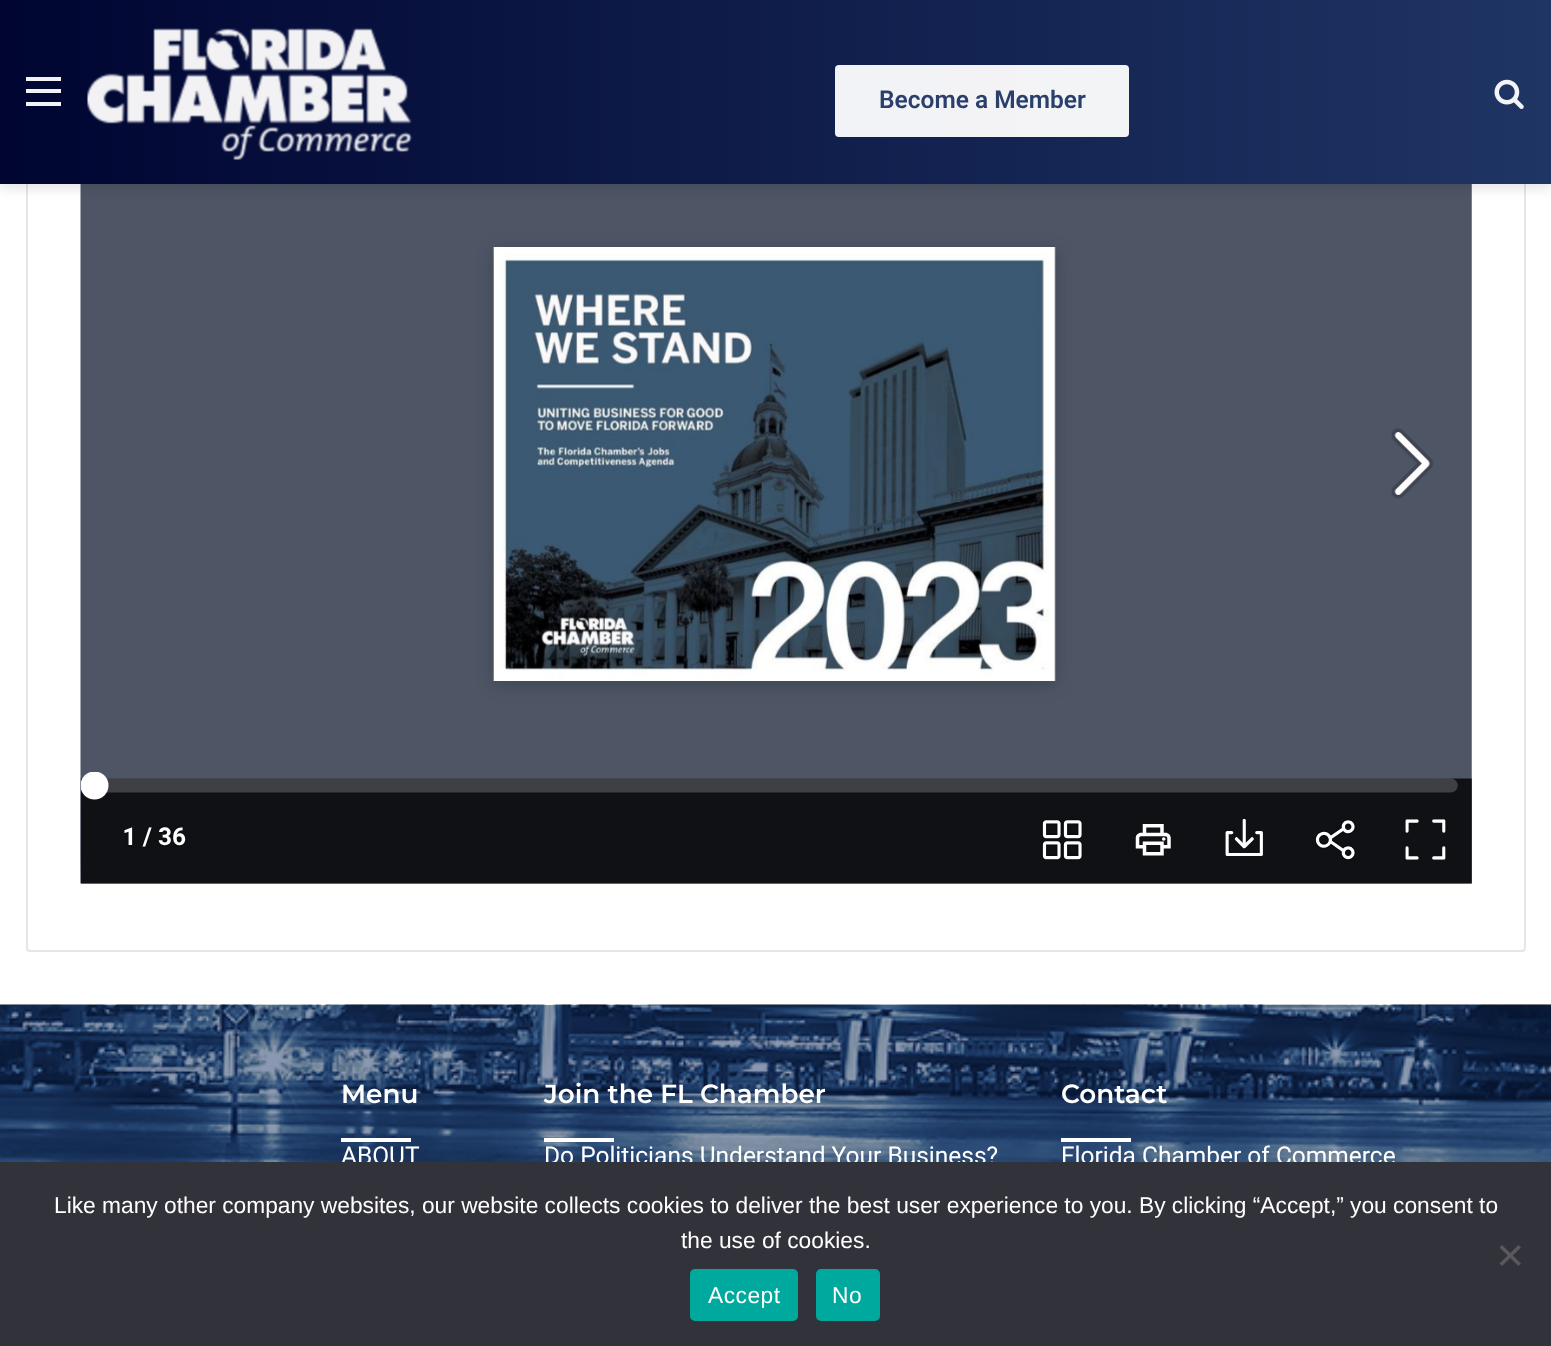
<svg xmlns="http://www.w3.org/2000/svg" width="1551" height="1346">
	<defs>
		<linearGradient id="g1" gradientUnits="userSpaceOnUse" x1="0" y1="92" x2="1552" y2="92"><stop offset="0" stop-color="#000531" /><stop offset="1" stop-color="#1F3564" /></linearGradient>
	</defs>
	<rect width="100%" height="100%" fill="#FFFFFF" />
	<rect x="27" y="-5" width="1498" height="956" rx="3" fill="none" stroke="#E6E6E6" stroke-width="2" />
	<image x="80" y="184" width="1392" height="700" href="assets/img1.png" />
	<rect x="0" y="5" width="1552" height="184" fill="#000000" fill-opacity="0.1" filter="blur(6px)" />
	<rect x="0" y="0" width="1551" height="184" fill="url(#g1)" />
	<rect x="26" y="89" width="35" height="4" fill="#F2F3F5" />
	<rect x="26" y="77" width="35" height="4" fill="#F2F3F5" />
	<rect x="26" y="102" width="35" height="4" fill="#F2F3F5" />
	<image x="87" y="28" width="326" height="132" href="assets/img2.png" />
	<rect x="835" y="65" width="294" height="72" rx="4" fill="#FFFFFF" fill-opacity="0.95" />
	<text x="879" y="108" font-family="Roboto" font-size="24.5" font-weight="600" fill="#2A3F6B">Become a Member</text>
	<image x="1494" y="79" width="30" height="30" href="assets/img3.png" />
	<rect x="0" y="1005" width="1551" height="157" fill="#0F2A63" />
	<image x="0" y="1004" width="1551" height="158" href="assets/img4.png" />
	<text x="341" y="1103" font-family="Montserrat" font-size="26.25" font-weight="600" fill="#FFFFFF">Menu</text>
	<rect x="341" y="1138" width="70" height="4" fill="#FFFFFF" />
	<text x="341" y="1164" font-family="Roboto" font-size="24.5" fill="#FFFFFF">ABOUT</text>
	<text x="544" y="1103" font-family="Montserrat" font-size="26.25" font-weight="600" fill="#FFFFFF">Join the FL Chamber</text>
	<rect x="544" y="1138" width="70" height="4" fill="#FFFFFF" />
	<text x="544" y="1164" font-family="Roboto" font-size="24.5" fill="#FFFFFF">Do Politicians Understand Your Business?</text>
	<text x="1061" y="1103" font-family="Montserrat" font-size="26.25" font-weight="600" fill="#FFFFFF">Contact</text>
	<rect x="1061" y="1138" width="70" height="4" fill="#FFFFFF" />
	<text x="1061" y="1164" font-family="Roboto" font-size="24.5" fill="#FFFFFF">Florida Chamber of Commerce</text>
	<rect x="0" y="1162" width="1551" height="184" fill="#32323A" />
	<g font-family="Liberation Sans" font-size="22.75" fill="#FFFFFF">
		<text x="54" y="1213">Like many other company websites, our website collects cookies to deliver the best user experience to you. By clicking “Accept,” you consent to</text>
		<text x="681" y="1248">the use of cookies.</text>
	</g>
	<path d="M1518.5 1245L1521 1247.5L1502 1266L1499.5 1263.5Z" fill="#59595D" />
	<path d="M1499.5 1247.5L1502 1245L1521 1263.5L1518.5 1266Z" fill="#59595D" />
	<rect x="690" y="1269" width="108" height="52" rx="5" fill="#00A99D" />
	<text x="708" y="1303" font-family="Liberation Sans" font-size="22.75" letter-spacing="0.5" fill="#FFFFFF">Accept</text>
	<rect x="816" y="1269" width="64" height="52" rx="5" fill="#00A99D" />
	<text x="832" y="1303" font-family="Liberation Sans" font-size="22.75" letter-spacing="0.5" fill="#FFFFFF">No</text>
</svg>
